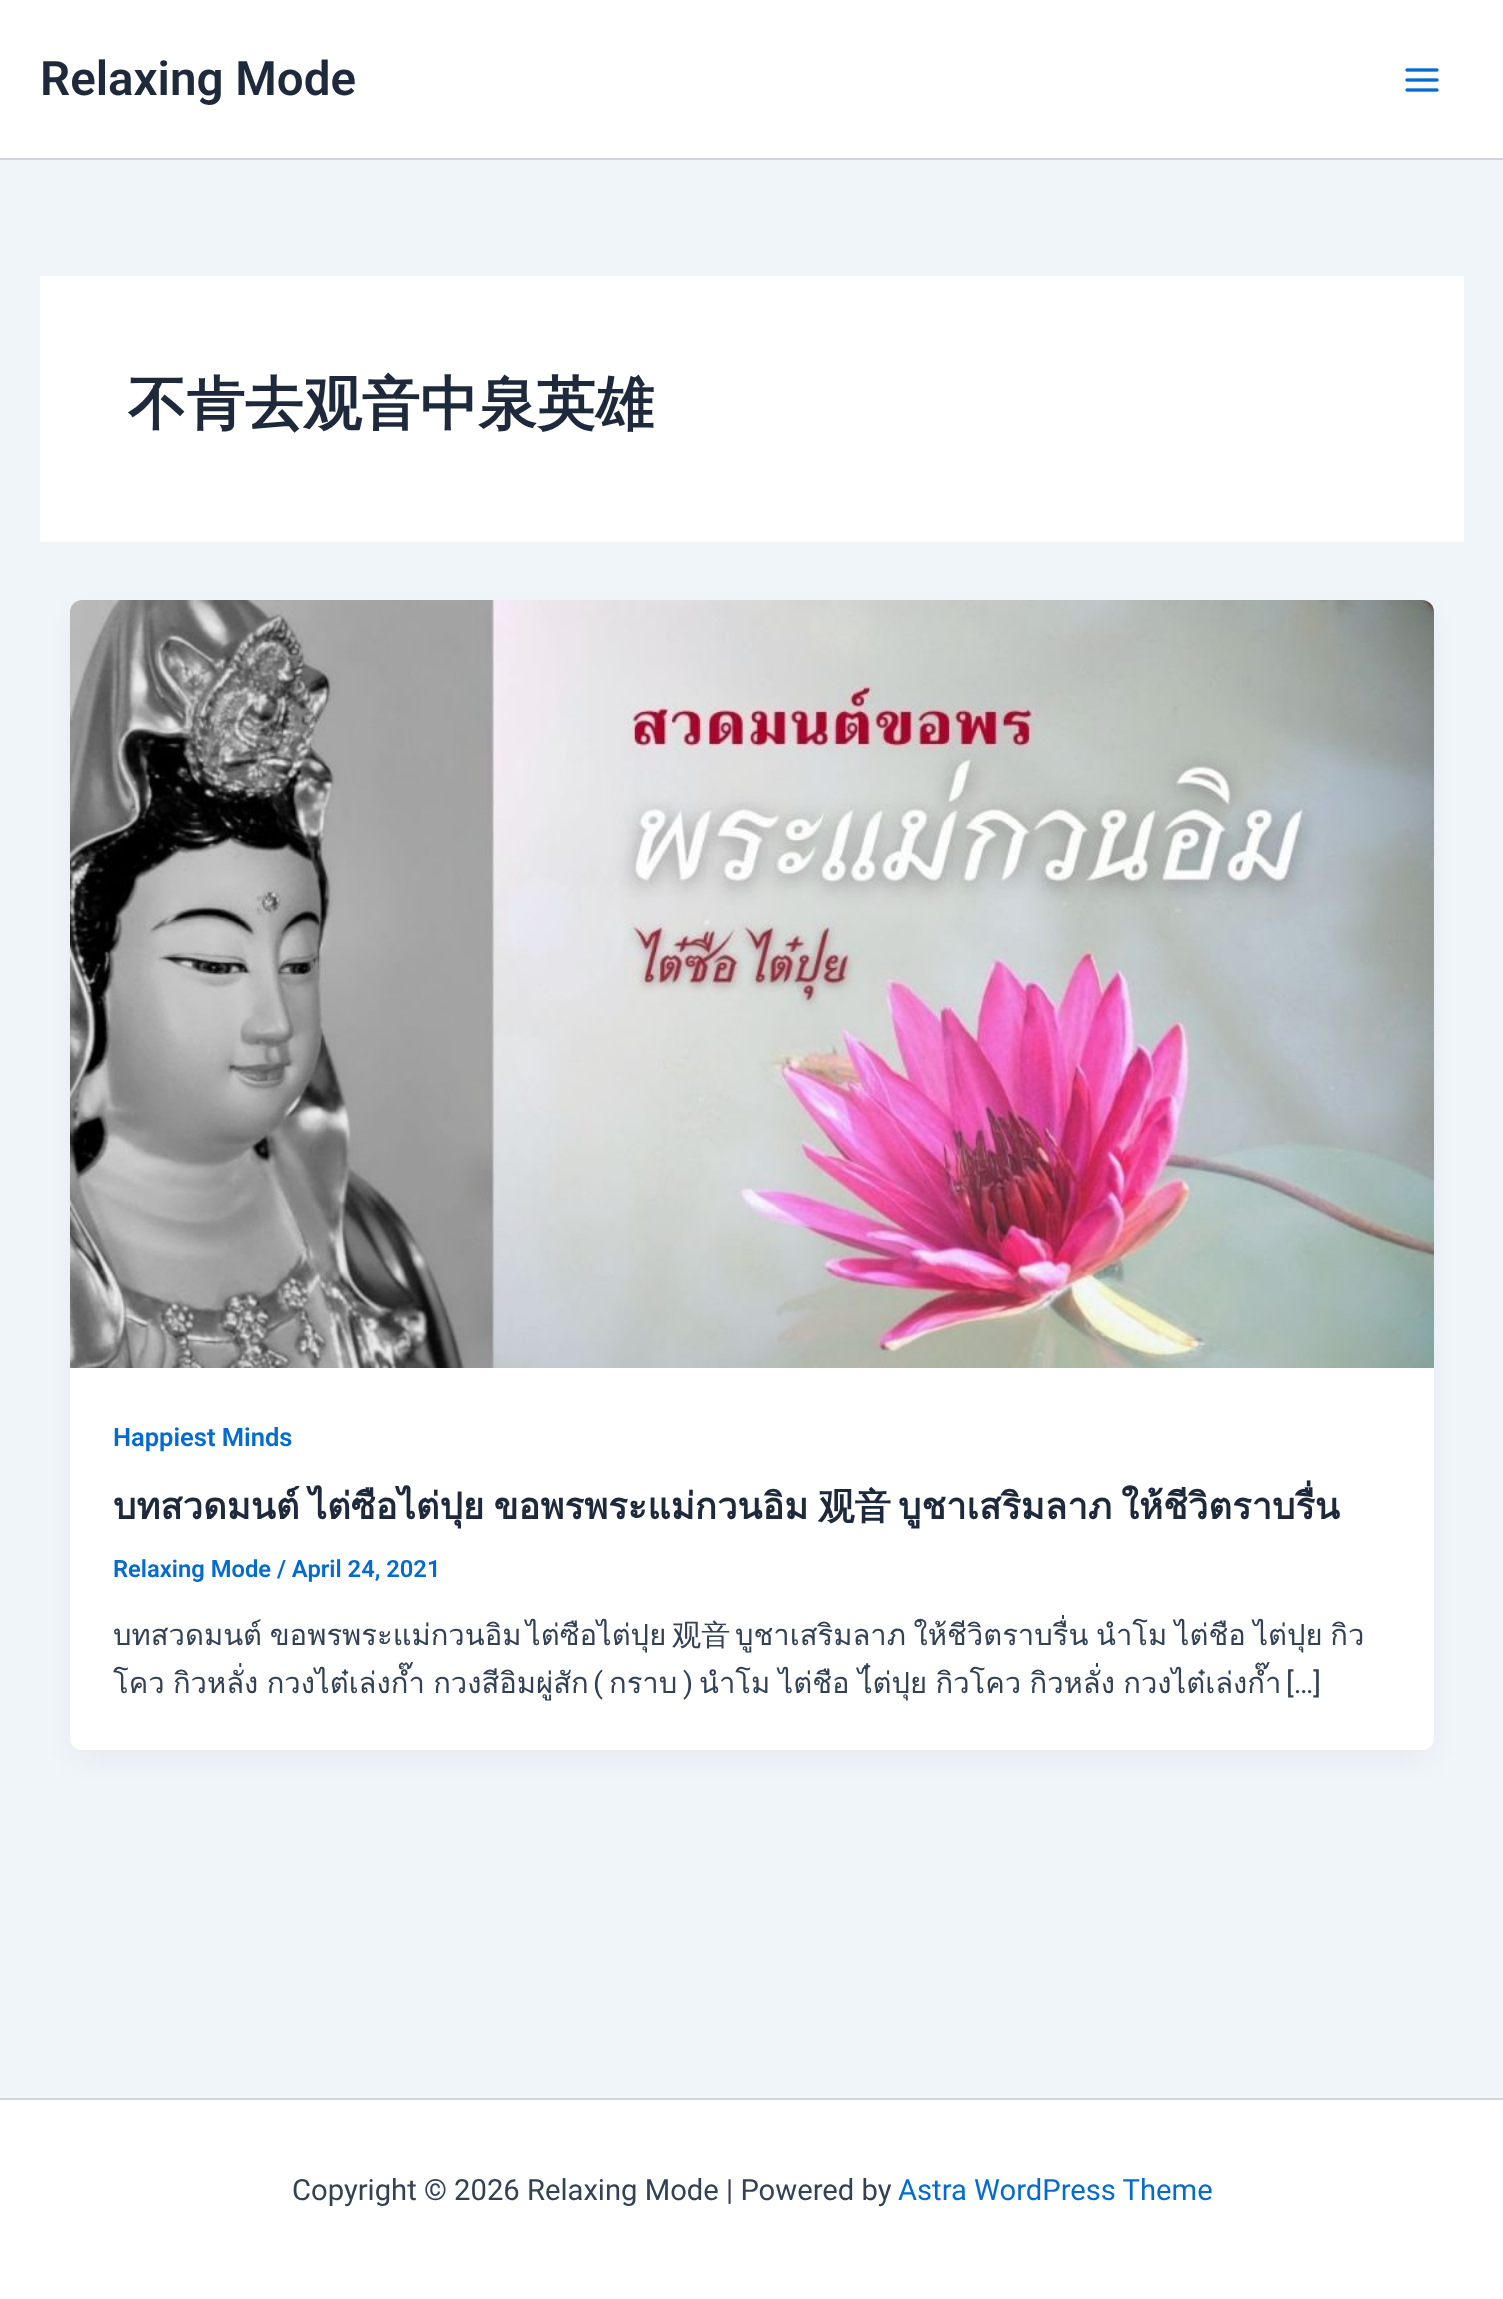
<svg xmlns="http://www.w3.org/2000/svg" width="1503" height="2299">
	<rect width="100%" height="100%" fill="#F0F5FA" />
	<rect x="0" y="0" width="1503" height="158" fill="#FFFFFF" />
	<rect x="0" y="158" width="1503" height="2" fill="#D1D5DB" />
	<text x="40" y="95" font-family="Roboto" font-size="47.5" font-weight="600" fill="#1E293B">Relaxing Mode</text>
	<image x="1405" y="68" width="34" height="24" href="assets/img1.png" />
	<rect x="40" y="276" width="1424" height="266" fill="#FFFFFF" />
	<text x="128" y="424" font-family="WenQuanYi Zen Hei" font-size="58.4" font-weight="700" fill="#1E293B">不肯去观音中泉英雄</text>
	<rect x="74" y="616" width="1356" height="1142" rx="8" fill="#101828" fill-opacity="0.05" filter="blur(15px)" />
	<rect x="70" y="600" width="1364" height="1150" rx="12" fill="#FFFFFF" />
	<image x="70" y="600" width="1364" height="768" href="assets/img2.png" />
	<text x="113" y="1446" font-family="Roboto" font-size="25.5" font-weight="600" fill="#046BD2">Happiest Minds</text>
	<text x="113" y="1519" word-spacing="-3" font-family="Loma" font-size="36.5" font-weight="700" fill="#1E293B">บทสวดมนต์ ไต่ซือไต่ปุย ขอพรพระแม่กวนอิม</text>
	<text x="818" y="1519" font-family="WenQuanYi Zen Hei" font-size="36.5" font-weight="700" fill="#1E293B">观音</text>
	<text x="898" y="1519" word-spacing="-3" font-family="Loma" font-size="36.5" font-weight="700" fill="#1E293B">บูชาเสริมลาภ ให้ชีวิตราบรื่น</text>
	<text x="113" y="1577" font-family="Roboto" font-size="23.75" font-weight="600" fill="#046BD2">Relaxing Mode / April 24, 2021</text>
	<g font-family="Loma" font-size="29.2" fill="#334155">
		<text x="113" y="1645" word-spacing="-2.25">บทสวดมนต์ ขอพรพระแม่กวนอิม</text>
		<text x="526" y="1645">ไต่ซือไต่ปุย</text>
	</g>
	<text x="672" y="1645" font-family="WenQuanYi Zen Hei" font-size="29.2" font-weight="500" fill="#334155">观音</text>
	<g font-family="Loma" font-size="29.2" fill="#334155">
		<text x="735" y="1645" word-spacing="-2.25">บูชาเสริมลาภ ให้ชีวิตราบรื่น นำโม ไต่ชือ ไต่ปุย กิว</text>
		<text x="113" y="1693" word-spacing="-1.5">โคว กิวหลั่ง กวงไต๋เล่งก๊ำ กวงสีอิมผู่สัก</text>
	</g>
	<text x="593" y="1693" font-family="Roboto" font-size="29.2" fill="#334155">(</text>
	<text x="609" y="1693" font-family="Loma" font-size="29.2" fill="#334155">กราบ</text>
	<text x="683" y="1693" font-family="Roboto" font-size="29.2" fill="#334155">)</text>
	<text x="699" y="1693" word-spacing="-1.5" font-family="Loma" font-size="29.2" fill="#334155">นำโม ไต่ชือ ไ๋ต่ปุย กิวโคว กิวหลั่ง กวงไต๋เล่งก๊ำ</text>
	<text x="1286" y="1693" font-family="Roboto" font-size="29.2" fill="#334155">[…]</text>
	<rect x="0" y="2100" width="1503" height="199" fill="#FFFFFF" />
	<rect x="0" y="2098" width="1503" height="2" fill="#D1D5DB" />
	<text x="292" y="2200" font-family="Roboto" font-size="29.2" fill="#334155">Copyright © 2026 Relaxing Mode | Powered by</text>
	<text x="898" y="2200" font-family="Roboto" font-size="29.2" fill="#046BD2">Astra WordPress Theme</text>
</svg>
